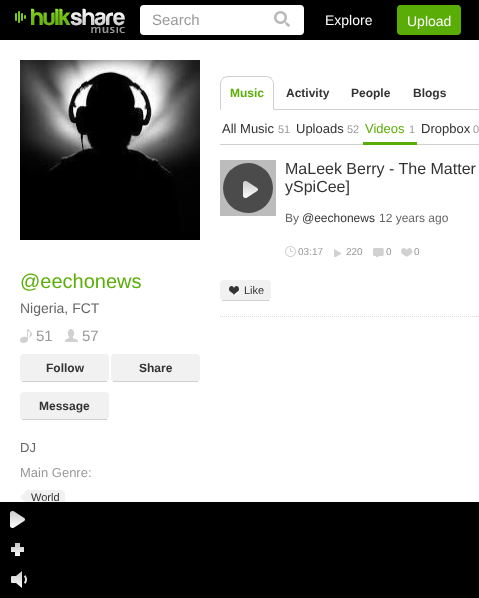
<svg xmlns="http://www.w3.org/2000/svg" width="479" height="598">
	<rect width="100%" height="100%" fill="#FFFFFF" />
	<rect x="0" y="0" width="479" height="40" fill="#000000" />
	<image x="15" y="8" width="110" height="25" href="assets/img1.png" />
	<rect x="141" y="6" width="162" height="28" rx="3" fill="#FFFFFF" stroke="#FFFFFF" stroke-width="2" />
	<text x="152" y="25" font-family="Liberation Sans" font-size="15" fill="#999999">Search</text>
	<image x="274" y="11" width="16" height="16" href="assets/img2.png" />
	<text x="325" y="25" font-family="Liberation Sans" font-size="14" fill="#FFFFFF">Explore</text>
	<rect x="397" y="5" width="64" height="30" rx="4" fill="#5AAD07" />
	<rect x="399" y="5" width="60" height="1" fill="#5AAD07" />
	<text x="407" y="26" font-family="Liberation Sans" font-size="14" fill="#FFFFFF">Upload</text>
	<rect x="220" y="109" width="259" height="1" fill="#D0D0D0" />
	<path d="M228 76C226 76 224 77 222 78L223 79C224 78 226 77 228 77H266C268 77 270 78 271 79L272 78C270 77 268 76 266 76Z" fill="#D0D0D0" />
	<path d="M274 110V84C274 82 273 80 271.5 78.5L271 79C272 80 273 82 273 84V109Z" fill="#D0D0D0" />
	<path d="M274 110L273 109H221L220 110Z" fill="#FFFFFF" />
	<path d="M220 110L221 109V84C221 82 222 80 223 79L222.5 78.5C221 80 220 82 220 84Z" fill="#D0D0D0" />
	<text x="230" y="97" font-family="Liberation Sans" font-size="12" font-weight="700" fill="#5AAE07">Music</text>
	<g font-family="Liberation Sans" font-size="12" font-weight="700" fill="#333333">
		<text x="286" y="97">Activity</text>
		<text x="351" y="97">People</text>
		<text x="413" y="97">Blogs</text>
	</g>
	<rect x="220" y="144" width="259" height="1" fill="#D0D0D0" />
	<text x="222" y="133" font-family="Liberation Sans" font-size="13" fill="#333333">All Music</text>
	<text x="278" y="133" font-family="Liberation Sans" font-size="11" fill="#999999">51</text>
	<text x="296" y="133" font-family="Liberation Sans" font-size="13" fill="#333333">Uploads</text>
	<text x="347" y="133" font-family="Liberation Sans" font-size="11" fill="#999999">52</text>
	<rect x="363" y="142" width="54" height="3" fill="#5AAE07" />
	<text x="365" y="133" font-family="Liberation Sans" font-size="13" fill="#5AAE07">Videos</text>
	<text x="409" y="133" font-family="Liberation Sans" font-size="11" fill="#999999">1</text>
	<text x="421" y="133" font-family="Liberation Sans" font-size="13" fill="#333333">Dropbox</text>
	<text x="473" y="133" font-family="Liberation Sans" font-size="11" fill="#999999">0</text>
	<path d="M220 316.5H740" fill="none" stroke="#DCDCDC" stroke-dasharray="1 1" />
	<rect x="220" y="160" width="56" height="56" fill="#BCBCBC" />
	<circle cx="248" cy="188" r="25" fill="#4B4B4B" />
	<image x="243" y="181" width="15" height="17" href="assets/img3.png" />
	<g font-family="Liberation Sans" font-size="16" fill="#333333">
		<text x="285" y="174">MaLeek Berry - The Matter</text>
		<text x="285" y="192">ySpiCee]</text>
	</g>
	<text x="285" y="222" font-family="Liberation Sans" font-size="12" fill="#666666">By</text>
	<text x="302" y="222" font-family="Liberation Sans" font-size="12" fill="#333333">@eechonews</text>
	<text x="379" y="222" font-family="Liberation Sans" font-size="12" fill="#666666">12 years ago</text>
	<image x="285" y="246" width="11" height="11" href="assets/img4.png" />
	<text x="298" y="255" font-family="Liberation Sans" font-size="10" fill="#999999">03:17</text>
	<image x="334" y="249" width="7" height="8" href="assets/img5.png" />
	<text x="346" y="255" font-family="Liberation Sans" font-size="10" fill="#999999">220</text>
	<image x="373" y="248" width="11" height="9" href="assets/img6.png" />
	<text x="386" y="255" font-family="Liberation Sans" font-size="10" fill="#999999">0</text>
	<image x="401" y="248" width="12" height="9" href="assets/img7.png" />
	<text x="414" y="255" font-family="Liberation Sans" font-size="10" fill="#999999">0</text>
	<rect x="220" y="280" width="51" height="21" rx="4" fill="#F1F1F1" />
	<rect x="222" y="300" width="47" height="1" fill="#D0D0D0" />
	<image x="229" y="286" width="10" height="10" href="assets/img8.png" />
	<text x="244" y="294" font-family="Liberation Sans" font-size="11" fill="#333333">Like</text>
	<image x="20" y="60" width="180" height="180" href="assets/img9.png" />
	<image x="72" y="81" width="61" height="60" href="assets/img10.png" />
	<text x="20" y="288" font-family="Liberation Sans" font-size="20" fill="#5AAE07">@eechonews</text>
	<text x="20" y="313" font-family="Liberation Sans" font-size="14" fill="#666666">Nigeria, FCT</text>
	<image x="20" y="329" width="12" height="14" href="assets/img11.png" />
	<text x="36" y="341" font-family="Liberation Sans" font-size="15" fill="#999999">51</text>
	<image x="65" y="329" width="13" height="13" href="assets/img12.png" />
	<text x="82" y="341" font-family="Liberation Sans" font-size="15" fill="#999999">57</text>
	<rect x="20" y="354" width="89" height="28" rx="4" fill="#F1F1F1" />
	<rect x="22" y="381" width="85" height="1" fill="#D0D0D0" />
	<text x="46" y="372" font-family="Liberation Sans" font-size="12" font-weight="700" fill="#333333">Follow</text>
	<rect x="111" y="354" width="89" height="28" rx="4" fill="#F1F1F1" />
	<rect x="113" y="381" width="85" height="1" fill="#D0D0D0" />
	<text x="139" y="372" font-family="Liberation Sans" font-size="12" font-weight="700" fill="#333333">Share</text>
	<rect x="20" y="392" width="89" height="28" rx="4" fill="#F1F1F1" />
	<rect x="22" y="419" width="85" height="1" fill="#D0D0D0" />
	<text x="39" y="410" font-family="Liberation Sans" font-size="12" font-weight="700" fill="#333333">Message</text>
	<text x="20" y="452" font-family="Liberation Sans" font-size="13" fill="#666666">DJ</text>
	<text x="20" y="477" font-family="Liberation Sans" font-size="13" fill="#999999">Main Genre:</text>
	<path d="M28 490H61C63 490 65 492 65 494V502C65 504 63 506 61 506H28Z" fill="#F1F1F1" />
	<path d="M28 489V505L20 497Z" fill="#F1F1F1" />
	<text x="31" y="501" font-family="Liberation Sans" font-size="11" fill="#333333">World</text>
	<rect x="0" y="502" width="479" height="96" fill="#000000" />
	<image x="10" y="511" width="15" height="17" href="assets/img13.png" />
	<image x="11" y="543" width="13" height="13" href="assets/img14.png" />
	<image x="11" y="571" width="16" height="17" href="assets/img15.png" />
</svg>
